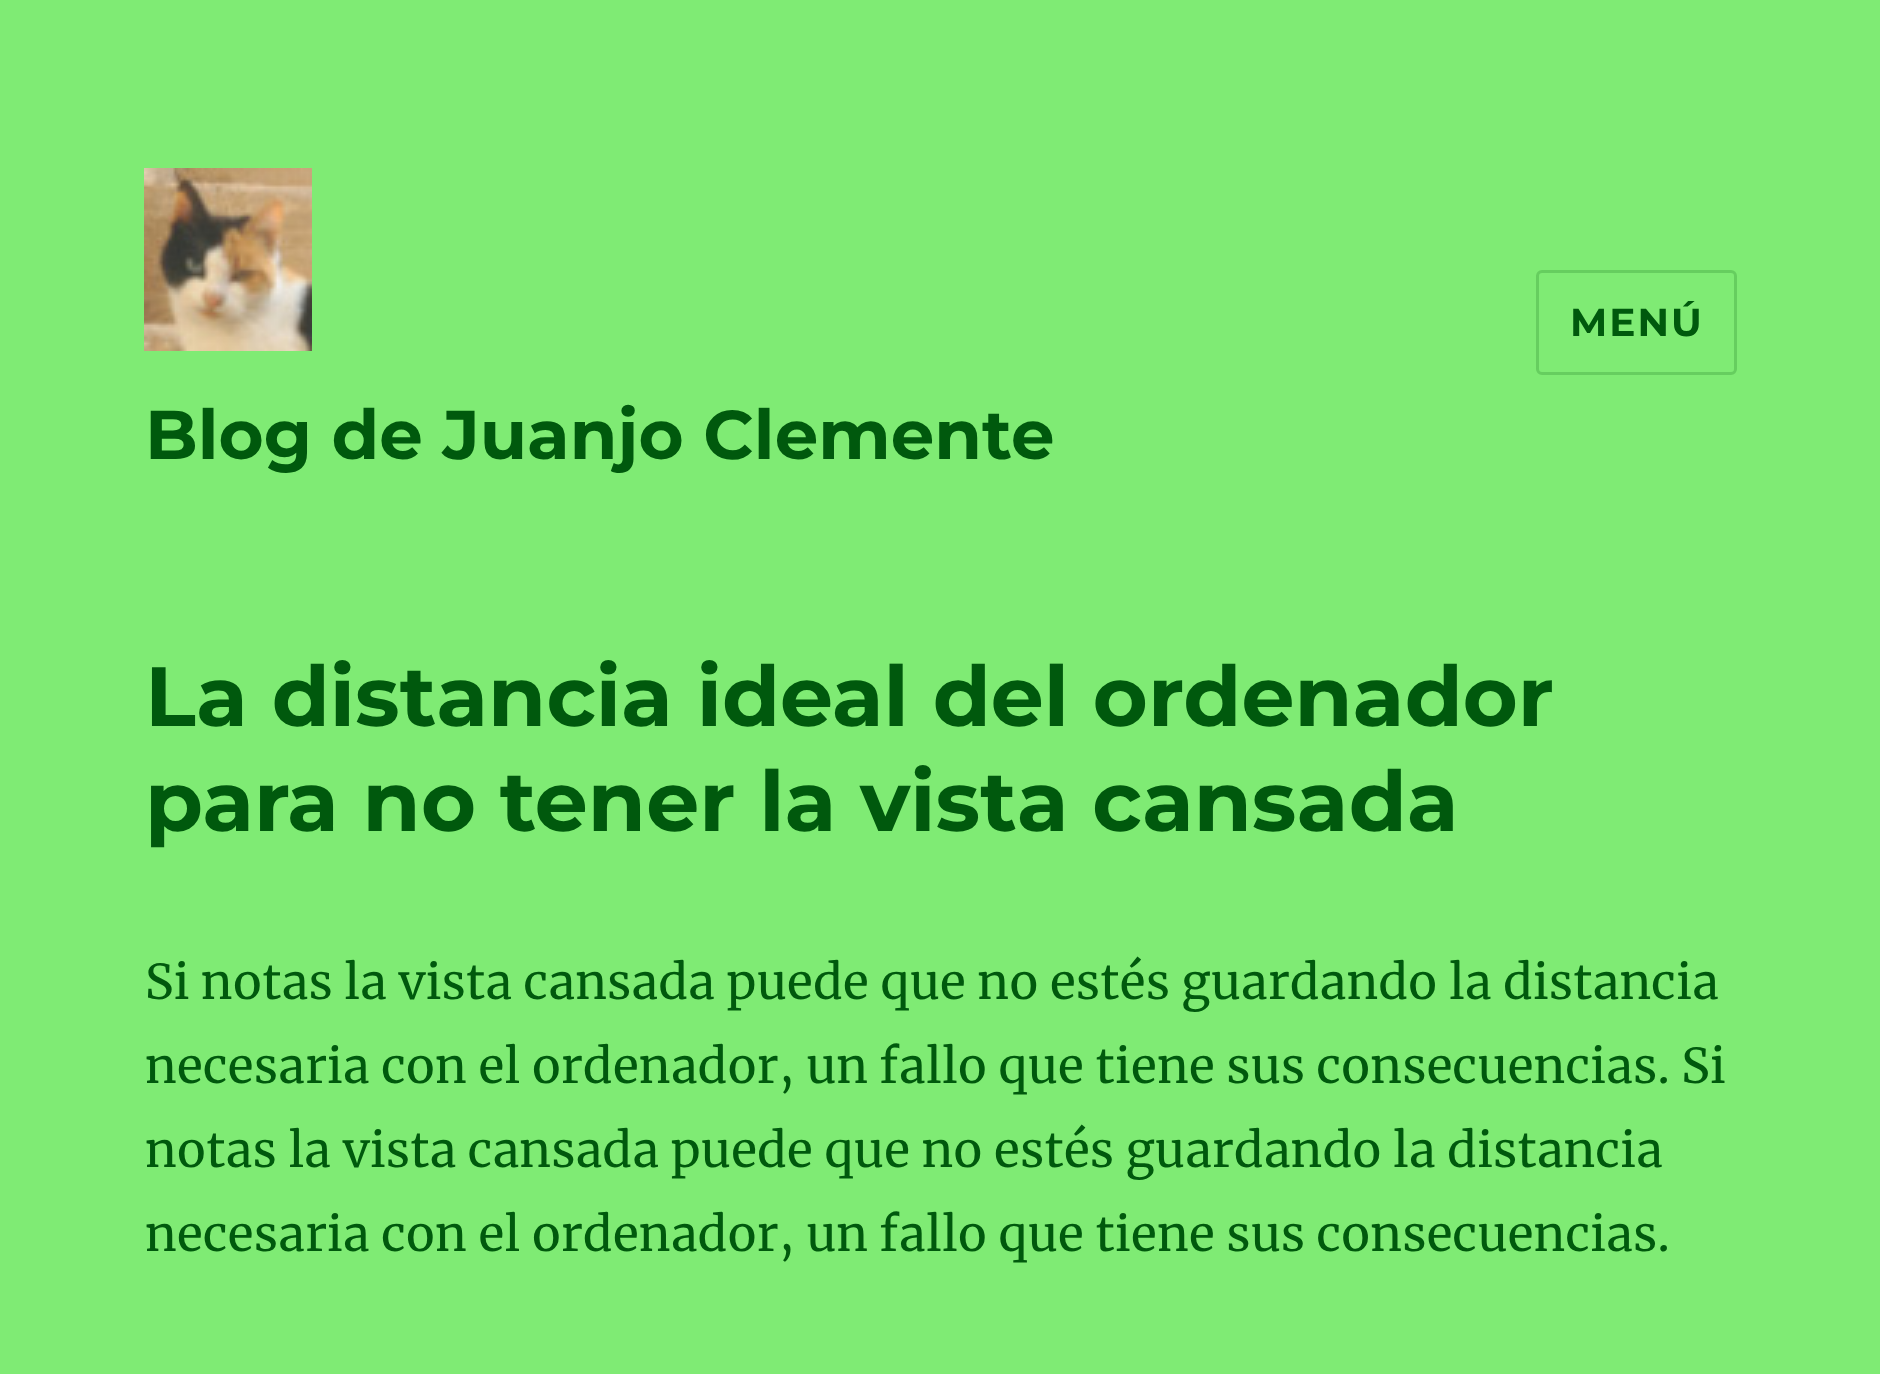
<svg xmlns="http://www.w3.org/2000/svg" width="1880" height="1374">
	<rect width="100%" height="100%" fill="#7FEB74" />
	<rect x="1537.5" y="271.5" width="198" height="102" rx="4.5" fill="none" stroke="#66CE5F" stroke-width="3" />
	<text x="1570" y="336" font-family="Montserrat" font-size="39" font-weight="100" letter-spacing="2" fill="#00590D">MENÚ</text>
	<image x="144" y="168" width="168" height="183" href="assets/img1.png" />
	<text x="145" y="459" font-family="Montserrat" font-size="69" font-weight="100" fill="#00590D">Blog de Juanjo Clemente</text>
	<g font-family="Montserrat" font-size="84" font-weight="100" fill="#00590D">
		<text x="145" y="726">La distancia ideal del ordenador</text>
		<text x="145" y="831">para no tener la vista cansada</text>
	</g>
	<g font-family="Merriweather" font-size="48" fill="#00590D">
		<text x="145" y="999">Si notas la vista cansada puede que no estés guardando la distancia</text>
		<text x="145" y="1083">necesaria con el ordenador, un fallo que tiene sus consecuencias. Si</text>
		<text x="145" y="1167">notas la vista cansada puede que no estés guardando la distancia</text>
		<text x="145" y="1251">necesaria con el ordenador, un fallo que tiene sus consecuencias.</text>
	</g>
</svg>
